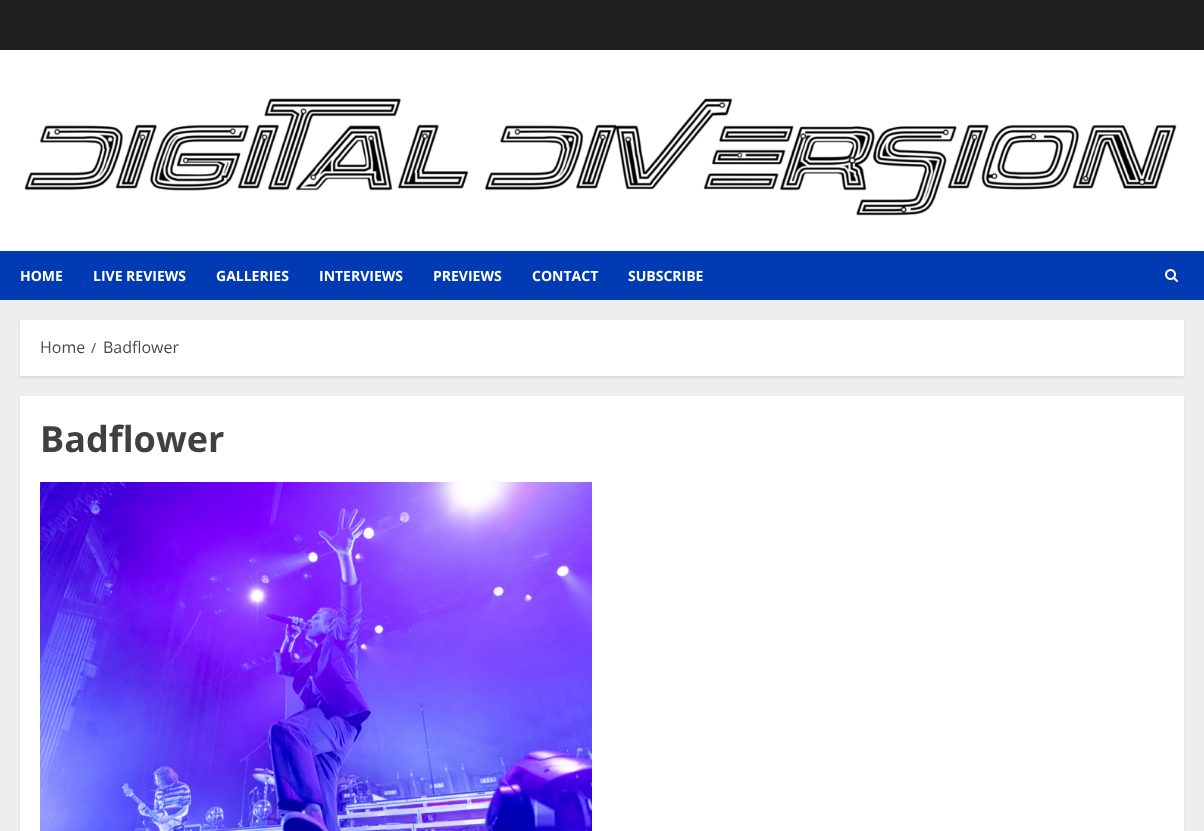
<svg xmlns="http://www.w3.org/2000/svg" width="1204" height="831">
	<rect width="100%" height="100%" fill="#EEEEEE" />
	<rect x="0" y="0" width="1204" height="50" fill="#202020" />
	<rect x="0" y="50" width="1204" height="201" fill="#FFFFFF" />
	<image x="24" y="98" width="1153" height="118" href="assets/img1.png" />
	<rect x="0" y="251" width="1204" height="49" fill="#003BB3" />
	<g font-family="Open Sans" font-size="14" font-weight="700" fill="#FFFFFF">
		<text x="20" y="281">HOME</text>
		<text x="93" y="281">LIVE REVIEWS</text>
		<text x="216" y="281">GALLERIES</text>
		<text x="319" y="281">INTERVIEWS</text>
		<text x="433" y="281">PREVIEWS</text>
		<text x="532" y="281">CONTACT</text>
		<text x="628" y="281">SUBSCRIBE</text>
	</g>
	<image x="1165" y="269" width="13" height="13" href="assets/img2.png" />
	<rect x="20" y="322" width="1164" height="56" fill="#000000" fill-opacity="0.08" filter="blur(1px)" />
	<rect x="20" y="320" width="1164" height="56" fill="#FFFFFF" />
	<text x="40" y="353" font-family="Open Sans" font-size="16" fill="#4A4A4A">Home</text>
	<text x="91" y="353" font-family="Open Sans" font-size="14" fill="#4A4A4A">/</text>
	<text x="103" y="353" font-family="Open Sans" font-size="16" fill="#4A4A4A">Badflower</text>
	<rect x="20" y="398" width="1164" height="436" fill="#000000" fill-opacity="0.08" filter="blur(1px)" />
	<rect x="20" y="396" width="1164" height="435" fill="#FFFFFF" />
	<text x="40" y="452" font-family="Open Sans" font-size="36" font-weight="700" fill="#404040">Badflower</text>
	<image x="40" y="482" width="552" height="349" href="assets/img3.png" />
</svg>
